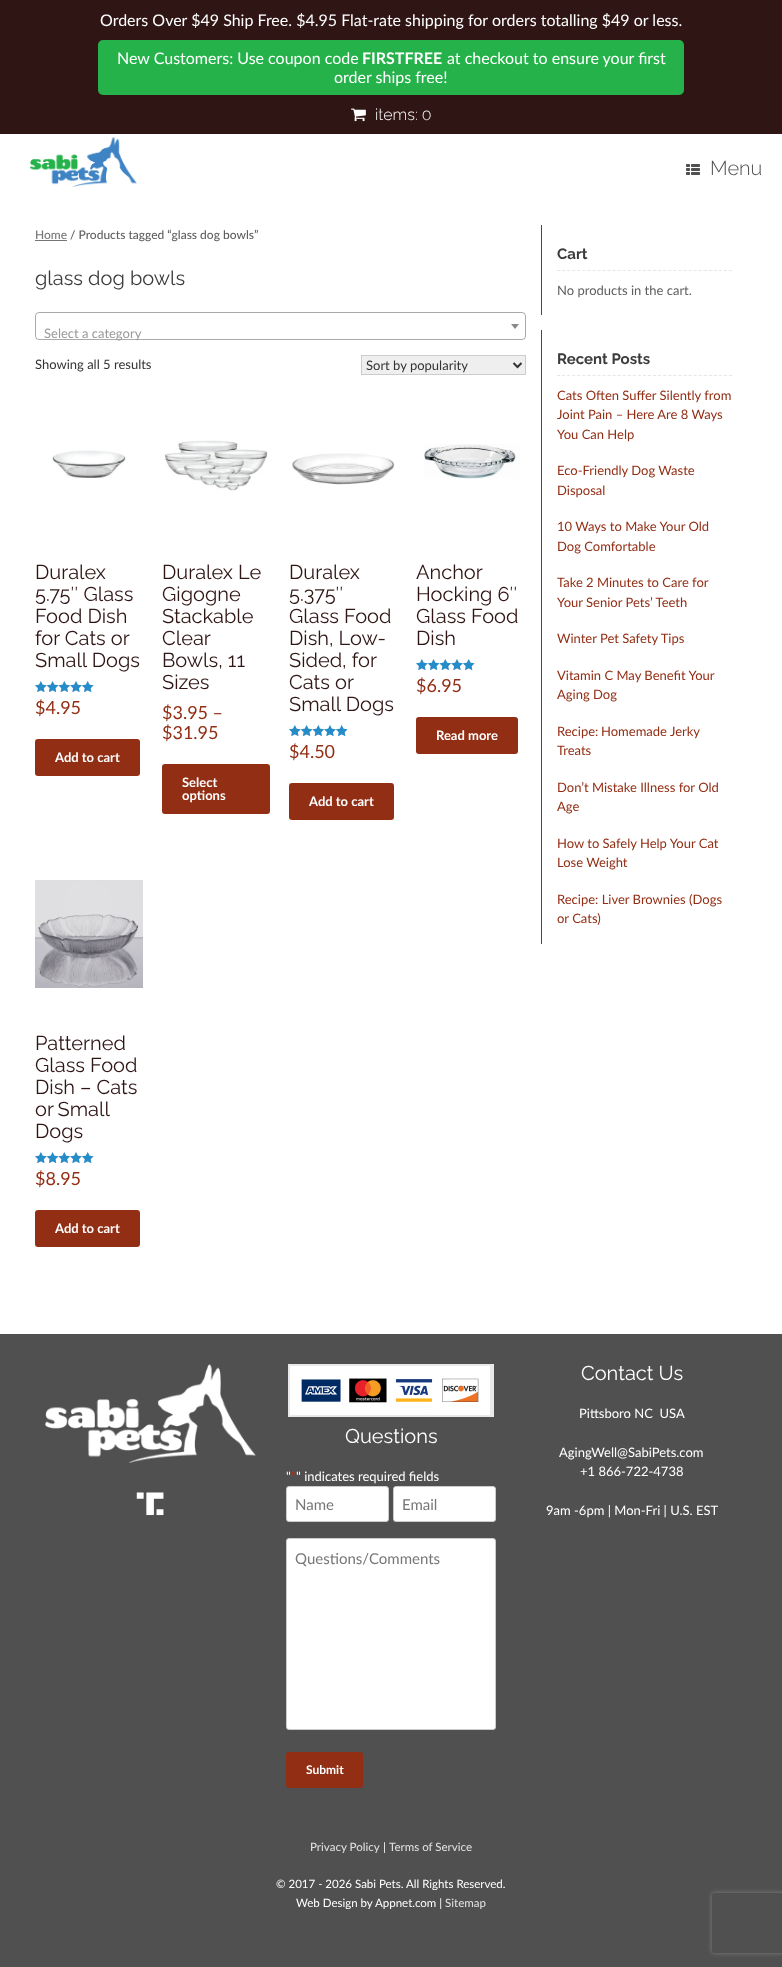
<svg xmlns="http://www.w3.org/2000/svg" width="782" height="1967">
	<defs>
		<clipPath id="clip1"><path d="M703 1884H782V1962H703ZM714 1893H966C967 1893 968 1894 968 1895V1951C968 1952 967 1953 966 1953H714C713 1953 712 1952 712 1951V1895C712 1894 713 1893 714 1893Z" clip-rule="evenodd" /></clipPath>
	</defs>
	<rect width="100%" height="100%" fill="#505050" />
	<rect x="0" y="0" width="782" height="134" fill="#301515" />
	<text x="100" y="26" font-family="Lato" font-size="16" fill="#FFFFFF">Orders Over $49 Ship Free. $4.95 Flat-rate shipping for orders totalling $49 or less.</text>
	<rect x="98" y="40" width="586" height="55" rx="5" fill="#26B24B" />
	<text x="117" y="64" font-family="Lato" font-size="16" fill="#FFFFFF">New Customers: Use coupon code</text>
	<text x="362" y="64" font-family="Lato" font-size="16" font-weight="700" fill="#FFFFFF">FIRSTFREE</text>
	<g font-family="Lato" font-size="16" fill="#FFFFFF">
		<text x="447" y="64">at checkout to ensure your first</text>
		<text x="334" y="83">order ships free!</text>
	</g>
	<image x="351" y="108" width="15" height="14" href="assets/img1.png" />
	<text x="375" y="120" font-family="Raleway" font-size="16" font-weight="300" fill="#FFFFFF">items: 0</text>
	<rect x="0" y="134" width="782" height="1200" fill="#FFFFFF" />
	<image x="30" y="137" width="107" height="50" href="assets/img2.png" />
	<image x="686" y="164" width="14" height="11" href="assets/img3.png" />
	<text x="710" y="175" font-family="Raleway" font-size="20" font-weight="300" fill="#505050">Menu</text>
	<text x="35" y="239" font-family="Lato" font-size="12" font-weight="500" fill="#767676">Home</text>
	<rect x="35" y="240" width="32" height="1" fill="#767676" />
	<text x="70" y="239" font-family="Lato" font-size="12" font-weight="500" fill="#5E5E5E">/ Products tagged “glass dog bowls”</text>
	<text x="35" y="285" font-family="Raleway" font-size="20" font-weight="100" fill="#3B3B3B">glass dog bowls</text>
	<rect x="35.5" y="312.5" width="490" height="27" rx="3.5" fill="none" stroke="#AAAAAA" />
	<path d="M511 324H519L515 329Z" fill="#888888" />
	<text x="44" y="338" font-family="Lato" font-size="13" fill="#999999">Select a category</text>
	<text x="35" y="369" font-family="Lato" font-size="13" fill="#333333">Showing all 5 results</text>
	<rect x="361.5" y="355.5" width="164" height="19" fill="#EFEFEF" stroke="#CCCCCC" />
	<path d="M513.5 363L517.5 367L521.5 363" fill="none" stroke="#333333" stroke-width="2" />
	<text x="366" y="370" font-family="Lato" font-size="13" fill="#333333">Sort by popularity</text>
	<image x="52" y="450" width="74" height="28" href="assets/img4.png" />
	<g font-family="Raleway" font-size="20" font-weight="100" fill="#301515">
		<text x="35" y="579">Duralex</text>
		<text x="35" y="601">5.75″ Glass</text>
		<text x="35" y="623">Food Dish</text>
		<text x="35" y="645">for Cats or</text>
		<text x="35" y="667">Small Dogs</text>
	</g>
	<image x="35" y="681" width="59" height="11" href="assets/img5.png" />
	<image x="35" y="681" width="59" height="11" href="assets/img6.png" />
	<text x="35" y="714" font-family="Lato" font-size="18" fill="#922E14">$4.95</text>
	<rect x="35" y="739" width="105" height="37" rx="3" fill="#922E14" />
	<text x="55" y="762" font-family="Lato" font-size="13" font-weight="700" fill="#FFFFFF">Add to cart</text>
	<image x="164" y="440" width="104" height="51" href="assets/img7.png" />
	<g font-family="Raleway" font-size="20" font-weight="100" fill="#301515">
		<text x="162" y="579">Duralex Le</text>
		<text x="162" y="601">Gigogne</text>
		<text x="162" y="623">Stackable</text>
		<text x="162" y="645">Clear</text>
		<text x="162" y="667">Bowls, 11</text>
		<text x="162" y="689">Sizes</text>
	</g>
	<g font-family="Lato" font-size="18" fill="#922E14">
		<text x="162" y="719">$3.95 –</text>
		<text x="162" y="739">$31.95</text>
	</g>
	<rect x="162" y="764" width="108" height="50" rx="3" fill="#922E14" />
	<g font-family="Lato" font-size="13" font-weight="700" fill="#FFFFFF">
		<text x="182" y="787">Select</text>
		<text x="182" y="800">options</text>
	</g>
	<image x="292" y="453" width="103" height="32" href="assets/img8.png" />
	<g font-family="Raleway" font-size="20" font-weight="100" fill="#301515">
		<text x="289" y="579">Duralex</text>
		<text x="289" y="601">5.375″</text>
		<text x="289" y="623">Glass Food</text>
		<text x="289" y="645">Dish, Low-</text>
		<text x="289" y="667">Sided, for</text>
		<text x="289" y="689">Cats or</text>
		<text x="289" y="711">Small Dogs</text>
	</g>
	<image x="289" y="725" width="59" height="11" href="assets/img5.png" />
	<image x="289" y="725" width="59" height="11" href="assets/img6.png" />
	<text x="289" y="758" font-family="Lato" font-size="18" fill="#922E14">$4.50</text>
	<rect x="289" y="783" width="105" height="37" rx="3" fill="#922E14" />
	<text x="309" y="806" font-family="Lato" font-size="13" font-weight="700" fill="#FFFFFF">Add to cart</text>
	<image x="424" y="444" width="96" height="35" href="assets/img9.png" />
	<g font-family="Raleway" font-size="20" font-weight="100" fill="#301515">
		<text x="416" y="579">Anchor</text>
		<text x="416" y="601">Hocking 6″</text>
		<text x="416" y="623">Glass Food</text>
		<text x="416" y="645">Dish</text>
	</g>
	<image x="416" y="659" width="59" height="11" href="assets/img5.png" />
	<image x="416" y="659" width="59" height="11" href="assets/img6.png" />
	<text x="416" y="692" font-family="Lato" font-size="18" fill="#922E14">$6.95</text>
	<rect x="416" y="717" width="102" height="37" rx="3" fill="#922E14" />
	<text x="436" y="740" font-family="Lato" font-size="13" font-weight="700" fill="#FFFFFF">Read more</text>
	<image x="35" y="880" width="108" height="108" href="assets/img10.png" />
	<g font-family="Raleway" font-size="20" font-weight="100" fill="#301515">
		<text x="35" y="1050">Patterned</text>
		<text x="35" y="1072">Glass Food</text>
		<text x="35" y="1094">Dish – Cats</text>
		<text x="35" y="1116" word-spacing="-1">or Small</text>
		<text x="35" y="1138">Dogs</text>
	</g>
	<image x="35" y="1152" width="59" height="11" href="assets/img5.png" />
	<image x="35" y="1152" width="59" height="11" href="assets/img6.png" />
	<text x="35" y="1185" font-family="Lato" font-size="18" fill="#922E14">$8.95</text>
	<rect x="35" y="1210" width="105" height="37" rx="3" fill="#922E14" />
	<text x="55" y="1233" font-family="Lato" font-size="13" font-weight="700" fill="#FFFFFF">Add to cart</text>
	<rect x="541" y="225" width="1" height="90" fill="#922E14" />
	<path d="M557 270.5H732" fill="none" stroke="#E6E6E6" stroke-dasharray="3 2.06" />
	<text x="557" y="259" font-family="Raleway" font-size="15" font-weight="700" fill="#3B3B3B">Cart</text>
	<text x="557" y="295" font-family="Lato" font-size="13" fill="#5E5E5E">No products in the cart.</text>
	<rect x="541" y="330" width="1" height="614" fill="#922E14" />
	<path d="M557 375.5H732" fill="none" stroke="#E6E6E6" stroke-dasharray="3 2.06" />
	<text x="557" y="364" font-family="Raleway" font-size="15" font-weight="700" fill="#3B3B3B">Recent Posts</text>
	<g font-family="Lato" font-size="13" fill="#922E14">
		<text x="557" y="400">Cats Often Suffer Silently from</text>
		<text x="557" y="419">Joint Pain – Here Are 8 Ways</text>
		<text x="557" y="439">You Can Help</text>
		<text x="557" y="475">Eco-Friendly Dog Waste</text>
		<text x="557" y="495">Disposal</text>
		<text x="557" y="531">10 Ways to Make Your Old</text>
		<text x="557" y="551">Dog Comfortable</text>
		<text x="557" y="587">Take 2 Minutes to Care for</text>
		<text x="557" y="607">Your Senior Pets’ Teeth</text>
		<text x="557" y="643">Winter Pet Safety Tips</text>
		<text x="557" y="680">Vitamin C May Benefit Your</text>
		<text x="557" y="699">Aging Dog</text>
		<text x="557" y="736">Recipe:</text>
		<text x="601" y="736">Homemade Jerky</text>
		<text x="557" y="755">Treats</text>
		<text x="557" y="792">Don’t Mistake Illness for Old</text>
		<text x="557" y="811">Age</text>
		<text x="557" y="848">How to Safely Help Your Cat</text>
		<text x="557" y="867">Lose Weight</text>
		<text x="557" y="904">Recipe: Liver Brownies (Dogs</text>
		<text x="557" y="923">or Cats)</text>
	</g>
	<image x="45" y="1364" width="211" height="99" href="assets/img11.png" />
	<image x="136" y="1492" width="28" height="24" href="assets/img12.png" />
	<image x="288" y="1364" width="206" height="53" href="assets/img13.png" />
	<text x="345" y="1443" font-family="Raleway" font-size="20" font-weight="100" fill="#FFFFFF">Questions</text>
	<text x="286" y="1481" font-family="Lato" font-size="13" fill="#FFFFFF">"</text>
	<text x="290" y="1481" font-family="Lato" font-size="13" fill="#C02B0A">*</text>
	<text x="296" y="1481" font-family="Lato" font-size="13" fill="#FFFFFF">" indicates required fields</text>
	<rect x="286.5" y="1486.5" width="102" height="35" rx="2.5" fill="#FFFFFF" stroke="#CCCCCC" />
	<text x="295" y="1510" font-family="Lato" font-size="15" fill="#767676">Name</text>
	<rect x="393.5" y="1486.5" width="102" height="35" rx="2.5" fill="#FFFFFF" stroke="#CCCCCC" />
	<text x="402" y="1510" font-family="Lato" font-size="15" fill="#767676">Email</text>
	<rect x="286.5" y="1538.5" width="209" height="191" rx="2.5" fill="#FFFFFF" stroke="#CCCCCC" />
	<text x="295" y="1564" font-family="Lato" font-size="15" fill="#767676">Questions/Comments</text>
	<rect x="286" y="1752" width="77" height="36" rx="3" fill="#922E14" />
	<text x="306" y="1774" font-family="Lato" font-size="12" font-weight="700" fill="#FFFFFF">Submit</text>
	<text x="581" y="1380" font-family="Raleway" font-size="20" font-weight="100" fill="#FFFFFF">Contact Us</text>
	<g font-family="Lato" font-size="13" fill="#FFFFFF">
		<text x="579" y="1418" xml:space="preserve">Pittsboro NC  USA</text>
		<text x="559" y="1457">AgingWell@SabiPets.com</text>
		<text x="580" y="1476">+1 866-722-4738</text>
		<text x="546" y="1515">9am -6pm | Mon-Fri | U.S. EST</text>
	</g>
	<text x="310" y="1851" font-family="Lato" font-size="11.5" font-weight="500" fill="#DDDDDD">Privacy Policy</text>
	<text x="383" y="1851" font-family="Lato" font-size="11.5" fill="#FFFFFF">|</text>
	<text x="389" y="1851" font-family="Lato" font-size="11.5" font-weight="500" fill="#DDDDDD">Terms of Service</text>
	<g font-family="Lato" font-size="11.5" fill="#FFFFFF">
		<text x="276" y="1888">© 2017 - 2026 Sabi Pets. All Rights Reserved.</text>
		<text x="296" y="1907">Web Design by Appnet.com |</text>
	</g>
	<text x="445" y="1907" font-family="Lato" font-size="11.5" font-weight="500" fill="#DDDDDD">Sitemap</text>
	<g clip-path="url(#clip1)">
		<rect x="712" y="1893" width="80" height="60" rx="2" fill="#808080" filter="blur(2.5px)" />
	</g>
</svg>
